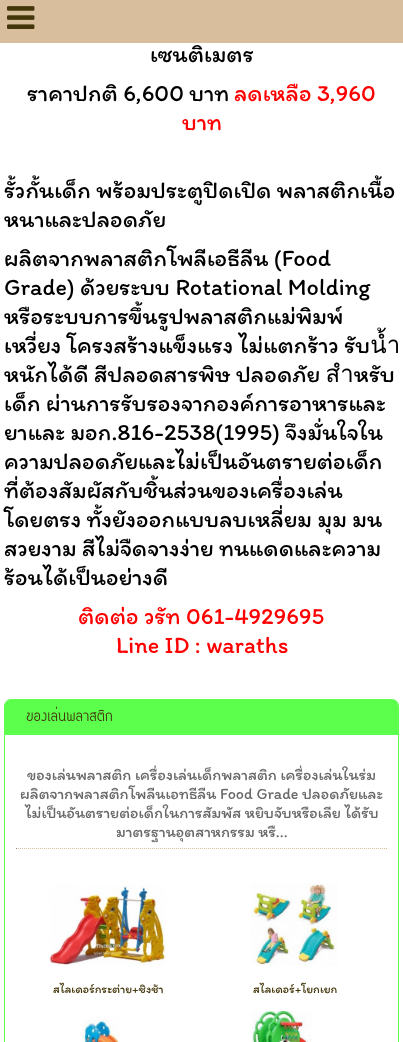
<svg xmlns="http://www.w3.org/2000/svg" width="403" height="1042">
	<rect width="100%" height="100%" fill="#FFFFFF" />
	<rect x="0" y="0" width="403" height="43" fill="#D8BE9D" />
	<image x="7" y="6" width="28" height="23" href="assets/img1.png" />
	<g font-family="Itim" font-size="24" fill="#000000">
		<text x="150" y="62">เซนติเมตร</text>
		<text x="27" y="101">ราคาปกติ 6,600 บาท</text>
	</g>
	<g font-family="Itim" font-size="24" fill="#FF0000">
		<text x="234" y="101">ลดเหลือ 3,960</text>
		<text x="182" y="130">บาท</text>
	</g>
	<g font-family="Itim" font-size="24" fill="#000000">
		<text x="4" y="198">รั้วกั้นเด็ก พร้อมประตูปิดเปิด พลาสติกเนื้อ</text>
		<text x="4" y="227">หนาและปลอดภัย</text>
		<text x="4" y="266">ผลิตจากพลาสติกโพลีเอธีลีน (Food</text>
		<text x="4" y="295">Grade) ด้วยระบบ Rotational Molding</text>
		<text x="4" y="324">หรือระบบการขึ้นรูปพลาสติกแม่พิมพ์</text>
		<text x="4" y="353">เหวี่ยง โครงสร้างแข็งแรง ไม่แตกร้าว รับน้ำ</text>
		<text x="4" y="382">หนักได้ดี สีปลอดสารพิษ ปลอดภัย สำหรับ</text>
		<text x="4" y="411">เด็ก ผ่านการรับรองจากองค์การอาหารและ</text>
		<text x="4" y="440">ยาและ มอก.816-2538(1995) จึงมั่นใจใน</text>
		<text x="4" y="469">ความปลอดภัยและไม่เป็นอันตรายต่อเด็ก</text>
		<text x="4" y="498">ที่ต้องสัมผัสกับชิ้นส่วนของเครื่องเล่น</text>
		<text x="4" y="527">โดยตรง ทั้งยังออกแบบลบเหลี่ยม มุม มน</text>
		<text x="4" y="556">สวยงาม สีไม่จืดจางง่าย ทนแดดและความ</text>
		<text x="4" y="585">ร้อนได้เป็นอย่างดี</text>
	</g>
	<g font-family="Itim" font-size="24" fill="#FF0000">
		<text x="78" y="624">ติดต่อ วรัท 061-4929695</text>
		<text x="116" y="653">Line ID : waraths</text>
	</g>
	<rect x="4.5" y="699.5" width="394" height="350" rx="6.5" fill="none" stroke="#5BFF4C" />
	<path d="M10 700.5H393C395.5 700.5 397.5 702.5 397.5 705V734.5H5.5V705C5.5 702.5 7.5 700.5 10 700.5Z" fill="#5BFF4C" stroke="#5BFF4C" />
	<text x="26" y="721" font-family="Circular" font-size="20" fill="#43360A">ของเล่นพลาสติก</text>
	<g font-family="Itim" font-size="16" fill="#696969">
		<text x="27" y="780">ของเล่นพลาสติก เครื่องเล่นเด็กพลาสติก เครื่องเล่นในร่ม</text>
		<text x="20" y="799">ผลิตจากพลาสติกโพลีนเอทธีลีน Food Grade ปลอดภัยและ</text>
		<text x="25" y="818">ไม่เป็นอันตรายต่อเด็กในการสัมพัส หยิบจับหรือเลีย ได้รับ</text>
		<text x="116" y="837">มาตรฐานอุตสาหกรรม หรื...</text>
	</g>
	<path d="M16 848.5H387" fill="none" stroke="#D8BE9D" stroke-dasharray="1 1" />
	<rect x="16" y="848" width="1" height="1" fill="#907F69" />
	<image x="49" y="885" width="117" height="81" href="assets/img2.png" />
	<text x="53" y="993" font-family="Itim" font-size="12" fill="#43360A">สไลเดอร์กระต่าย+ชิงช้า</text>
	<image x="251" y="883" width="87" height="83" href="assets/img3.png" />
	<text x="253" y="993" font-family="Itim" font-size="12" fill="#43360A">สไลเดอร์+โยกเยก</text>
	<image x="82" y="1017" width="38" height="25" href="assets/img4.png" />
	<image x="251" y="1011" width="61" height="31" href="assets/img5.png" />
</svg>
